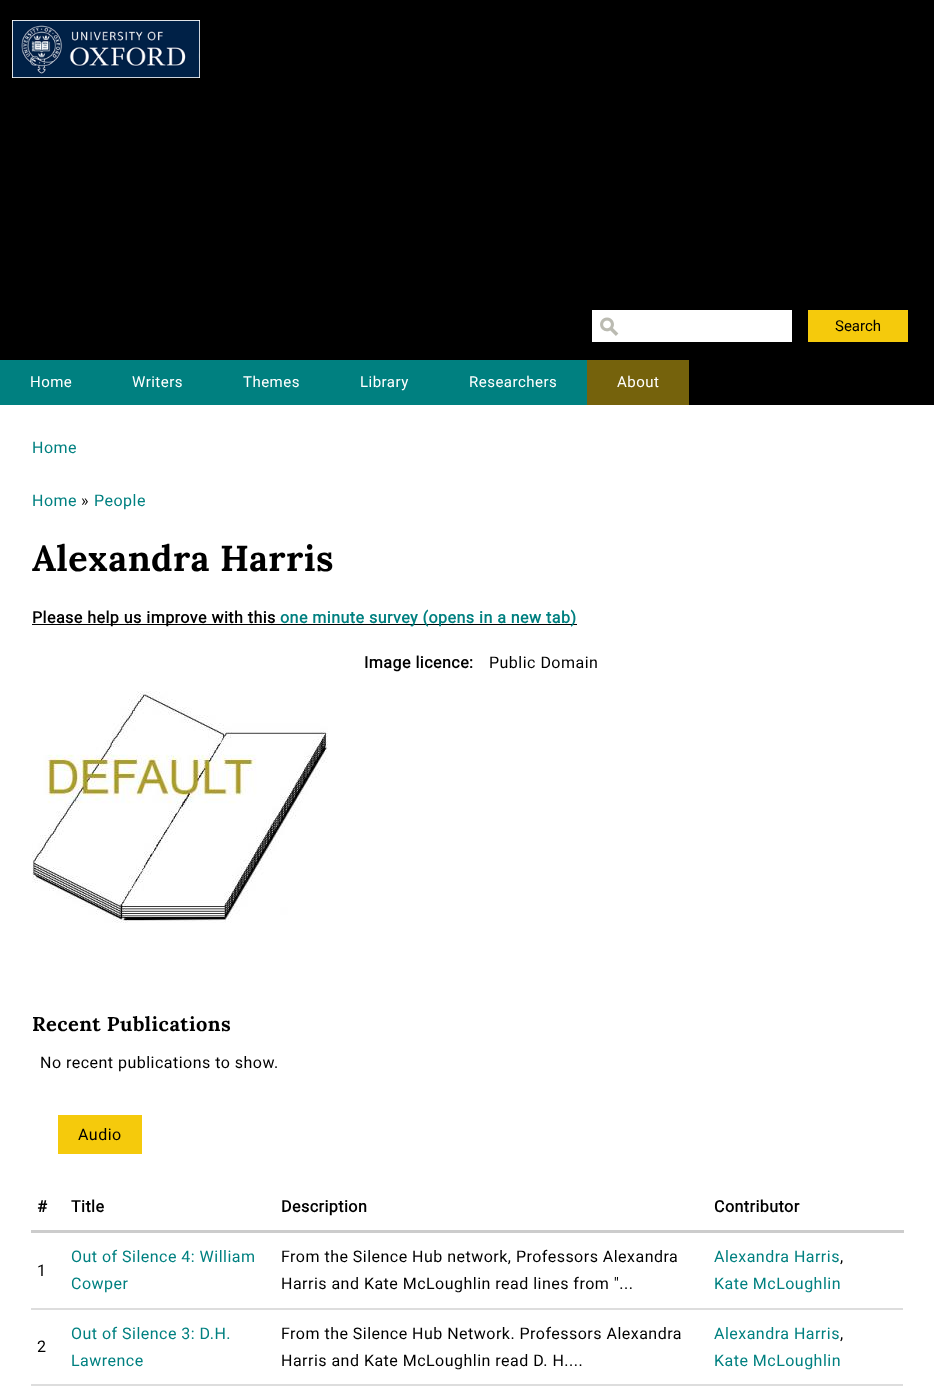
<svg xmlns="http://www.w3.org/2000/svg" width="934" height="1392">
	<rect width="100%" height="100%" fill="#FFFFFF" />
	<rect x="0" y="0" width="934" height="360" fill="#000000" />
	<image x="12" y="20" width="188" height="58" href="assets/img1.png" />
	<rect x="592" y="310" width="200" height="32" fill="#FFFFFF" />
	<image x="600" y="317" width="19" height="19" href="assets/img2.png" />
	<rect x="808" y="310" width="100" height="32" fill="#F5CA0C" />
	<text x="835" y="331" font-family="Roboto" font-size="15" fill="#000000">Search</text>
	<rect x="689" y="360" width="245" height="45" fill="#000000" />
	<rect x="0" y="360" width="587" height="45" fill="#008080" />
	<g font-family="Roboto" font-size="15" letter-spacing="0.48" fill="#FFFFFF">
		<text x="30" y="387">Home</text>
		<text x="132" y="387">Writers</text>
		<text x="243" y="387">Themes</text>
		<text x="360" y="387">Library</text>
		<text x="469" y="387">Researchers</text>
	</g>
	<rect x="587" y="360" width="102" height="45" fill="#75620C" />
	<text x="617" y="387" font-family="Roboto" font-size="15" letter-spacing="0.48" fill="#FFFFFF">About</text>
	<g font-family="Roboto" font-size="16" letter-spacing="0.48" fill="#008080">
		<text x="32" y="453">Home</text>
		<text x="32" y="506">Home</text>
	</g>
	<text x="81" y="506" font-family="Roboto" font-size="16" letter-spacing="0.48" fill="#000000">»</text>
	<text x="94" y="506" font-family="Roboto" font-size="16" letter-spacing="0.48" fill="#008080">People</text>
	<text x="32" y="571" font-family="Lora" font-size="36" font-weight="700" letter-spacing="0.48" fill="#000000">Alexandra Harris</text>
	<rect x="32" y="624" width="545" height="1" fill="#000000" />
	<text x="32" y="623" font-family="Roboto" font-size="16" font-weight="700" letter-spacing="0.48" fill="#000000">Please help us improve with this</text>
	<text x="280" y="623" font-family="Roboto" font-size="16" font-weight="700" letter-spacing="0.48" fill="#008080">one minute survey (opens in a new tab)</text>
	<text x="364" y="668" font-family="Roboto" font-size="16" font-weight="700" letter-spacing="0.48" fill="#000000">Image licence:</text>
	<text x="489" y="668" font-family="Roboto" font-size="16" letter-spacing="0.48" fill="#000000">Public Domain</text>
	<image x="32" y="691" width="296" height="232" href="assets/img3.png" />
	<text x="32" y="1031" font-family="Lora" font-size="20" font-weight="700" letter-spacing="0.48" fill="#000000">Recent Publications</text>
	<text x="40" y="1068" font-family="Roboto" font-size="16" letter-spacing="0.48" fill="#000000">No recent publications to show.</text>
	<rect x="58" y="1115" width="84" height="39" fill="#F5CA0C" />
	<text x="78" y="1140" font-family="Roboto" font-size="16" letter-spacing="0.48" fill="#000000">Audio</text>
	<g font-family="Roboto" font-size="16" font-weight="700" letter-spacing="0.48" fill="#000000">
		<text x="37" y="1212">#</text>
		<text x="71" y="1212">Title</text>
		<text x="281" y="1212">Description</text>
	</g>
	<rect x="31" y="1230" width="873" height="3" fill="#CCCCCC" />
	<text x="714" y="1212" font-family="Roboto" font-size="16" font-weight="700" letter-spacing="0.48" fill="#000000">Contributor</text>
	<text x="37" y="1276" font-family="Roboto" font-size="16" letter-spacing="0.48" fill="#000000">1</text>
	<g font-family="Roboto" font-size="16" letter-spacing="0.48" fill="#008080">
		<text x="71" y="1262">Out of Silence 4: William</text>
		<text x="71" y="1289">Cowper</text>
	</g>
	<g font-family="Roboto" font-size="16" letter-spacing="0.48" fill="#000000">
		<text x="281" y="1262">From the Silence Hub network, Professors Alexandra</text>
		<text x="281" y="1289">Harris and Kate McLoughlin read lines from "...</text>
	</g>
	<rect x="31" y="1308" width="872" height="2" fill="#DDDDDD" />
	<text x="714" y="1262" font-family="Roboto" font-size="16" letter-spacing="0.48" fill="#008080">Alexandra Harris</text>
	<text x="840" y="1262" font-family="Roboto" font-size="16" letter-spacing="0.48" fill="#000000">,</text>
	<text x="714" y="1289" font-family="Roboto" font-size="16" letter-spacing="0.48" fill="#008080">Kate McLoughlin</text>
	<text x="37" y="1352" font-family="Roboto" font-size="16" letter-spacing="0.48" fill="#000000">2</text>
	<g font-family="Roboto" font-size="16" letter-spacing="0.48" fill="#008080">
		<text x="71" y="1339">Out of Silence 3: D.H.</text>
		<text x="71" y="1366">Lawrence</text>
	</g>
	<g font-family="Roboto" font-size="16" letter-spacing="0.48" fill="#000000">
		<text x="281" y="1339">From the Silence Hub Network. Professors Alexandra</text>
		<text x="281" y="1366">Harris and Kate McLoughlin read D. H....</text>
	</g>
	<rect x="31" y="1384" width="872" height="2" fill="#DDDDDD" />
	<text x="714" y="1339" font-family="Roboto" font-size="16" letter-spacing="0.48" fill="#008080">Alexandra Harris</text>
	<text x="840" y="1339" font-family="Roboto" font-size="16" letter-spacing="0.48" fill="#000000">,</text>
	<text x="714" y="1366" font-family="Roboto" font-size="16" letter-spacing="0.48" fill="#008080">Kate McLoughlin</text>
</svg>
